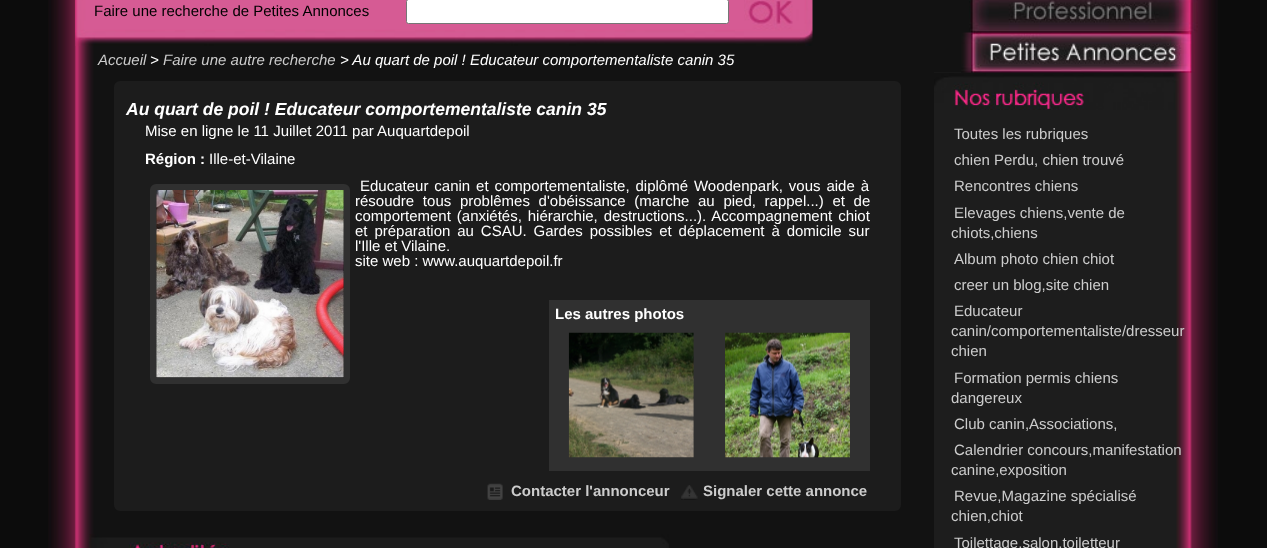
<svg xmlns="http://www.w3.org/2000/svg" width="1267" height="548">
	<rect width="100%" height="100%" fill="#0C0C0C" />
	<image x="48" y="0" width="1170" height="548" href="assets/img1.png" />
	<image x="75" y="0" width="738" height="46" href="assets/img2.png" />
	<text x="94" y="16" font-family="Liberation Sans" font-size="15" fill="#000000">Faire une recherche de Petites Annonces</text>
	<rect x="406.5" y="-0.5" width="322" height="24" rx="2" fill="#FFFFFF" stroke="#767676" />
	<image x="744" y="0" width="56" height="39" href="assets/img3.png" />
	<text x="98" y="65" font-family="Liberation Sans" font-size="15" font-style="italic" fill="#CCCCCC">Accueil</text>
	<text x="150" y="65" font-family="Liberation Sans" font-size="15" font-style="italic" fill="#FFFFFF">&gt;</text>
	<text x="163" y="65" font-family="Liberation Sans" font-size="15" font-style="italic" fill="#CCCCCC">Faire une autre recherche</text>
	<text x="340" y="65" font-family="Liberation Sans" font-size="15" font-style="italic" fill="#FFFFFF">&gt; Au quart de poil ! Educateur comportementaliste canin 35</text>
	<rect x="114" y="81" width="787" height="430" rx="6" fill="#1C1C1C" />
	<text x="126" y="115" font-family="Liberation Sans" font-size="17.5" font-weight="700" font-style="italic" fill="#FFFFFF">Au quart de poil ! Educateur comportementaliste canin 35</text>
	<text x="145" y="136" font-family="Liberation Sans" font-size="15" fill="#FFFFFF">Mise en ligne le 11 Juillet 2011 par Auquartdepoil</text>
	<text x="145" y="164" font-family="Liberation Sans" font-size="15" font-weight="700" fill="#FFFFFF">Région :</text>
	<text x="209" y="164" font-family="Liberation Sans" font-size="15" fill="#FFFFFF">Ille-et-Vilaine</text>
	<rect x="153" y="187" width="194" height="194" rx="3" fill="none" stroke="#303030" stroke-width="6" />
	<image x="156" y="190" width="188" height="188" href="assets/img4.png" />
	<g font-family="Liberation Sans" font-size="15" fill="#FFFFFF">
		<text x="360" y="191" word-spacing="1.75">Educateur canin et comportementaliste, diplômé Woodenpark, vous aide à</text>
		<text x="355" y="206" word-spacing="4.5">résoudre tous problêmes d'obéissance (marche au pied, rappel...) et de</text>
		<text x="355" y="221" word-spacing="1.75">comportement (anxiétés, hiérarchie, destructions...). Accompagnement chiot</text>
		<text x="355" y="236" word-spacing="2.75">et préparation au CSAU. Gardes possibles et déplacement à domicile sur</text>
		<text x="355" y="251">l'Ille et Vilaine.</text>
		<text x="355" y="266">site web : www.auquartdepoil.fr</text>
	</g>
	<rect x="549" y="300" width="321" height="171" fill="#303030" />
	<text x="555" y="319" font-family="Liberation Sans" font-size="15" font-weight="700" fill="#FFFFFF">Les autres photos</text>
	<image x="568" y="332" width="126" height="126" href="assets/img5.png" />
	<image x="725" y="332" width="125" height="126" href="assets/img6.png" />
	<image x="487" y="483" width="16" height="17" href="assets/img7.png" />
	<text x="511" y="496" font-family="Liberation Sans" font-size="15" font-weight="700" fill="#CCCCCC">Contacter l'annonceur</text>
	<image x="681" y="485" width="17" height="15" href="assets/img8.png" />
	<text x="703" y="496" font-family="Liberation Sans" font-size="15" font-weight="700" fill="#CCCCCC">Signaler cette annonce</text>
	<image x="969" y="0" width="229" height="33" href="assets/img9.png" />
	<image x="934" y="72" width="245" height="476" href="assets/img11.png" />
	<image x="961" y="32" width="234" height="41" href="assets/img10.png" />
	<image x="934" y="73" width="245" height="37" href="assets/img12.png" />
	<g font-family="Liberation Sans" font-size="15" fill="#CCCCCC">
		<text x="954" y="139">Toutes les rubriques</text>
		<text x="954" y="165">chien Perdu, chien trouvé</text>
		<text x="954" y="191">Rencontres chiens</text>
		<text x="954" y="218">Elevages chiens,vente de</text>
		<text x="951" y="238">chiots,chiens</text>
		<text x="954" y="264">Album photo chien chiot</text>
		<text x="954" y="290">creer un blog,site chien</text>
		<text x="954" y="316">Educateur</text>
		<text x="951" y="336">canin/comportementaliste/dresseur</text>
		<text x="951" y="356">chien</text>
		<text x="954" y="383">Formation permis chiens</text>
		<text x="951" y="403">dangereux</text>
		<text x="954" y="429">Club canin,Associations,</text>
		<text x="954" y="455">Calendrier concours,manifestation</text>
		<text x="951" y="475">canine,exposition</text>
		<text x="954" y="501">Revue,Magazine spécialisé</text>
		<text x="951" y="521">chien,chiot</text>
		<text x="954" y="548">Toilettage,salon,toiletteur</text>
	</g>
	<image x="89" y="534" width="580" height="14" href="assets/img13.png" />
	<image x="129" y="542" width="100" height="6" href="assets/img14.png" />
</svg>
